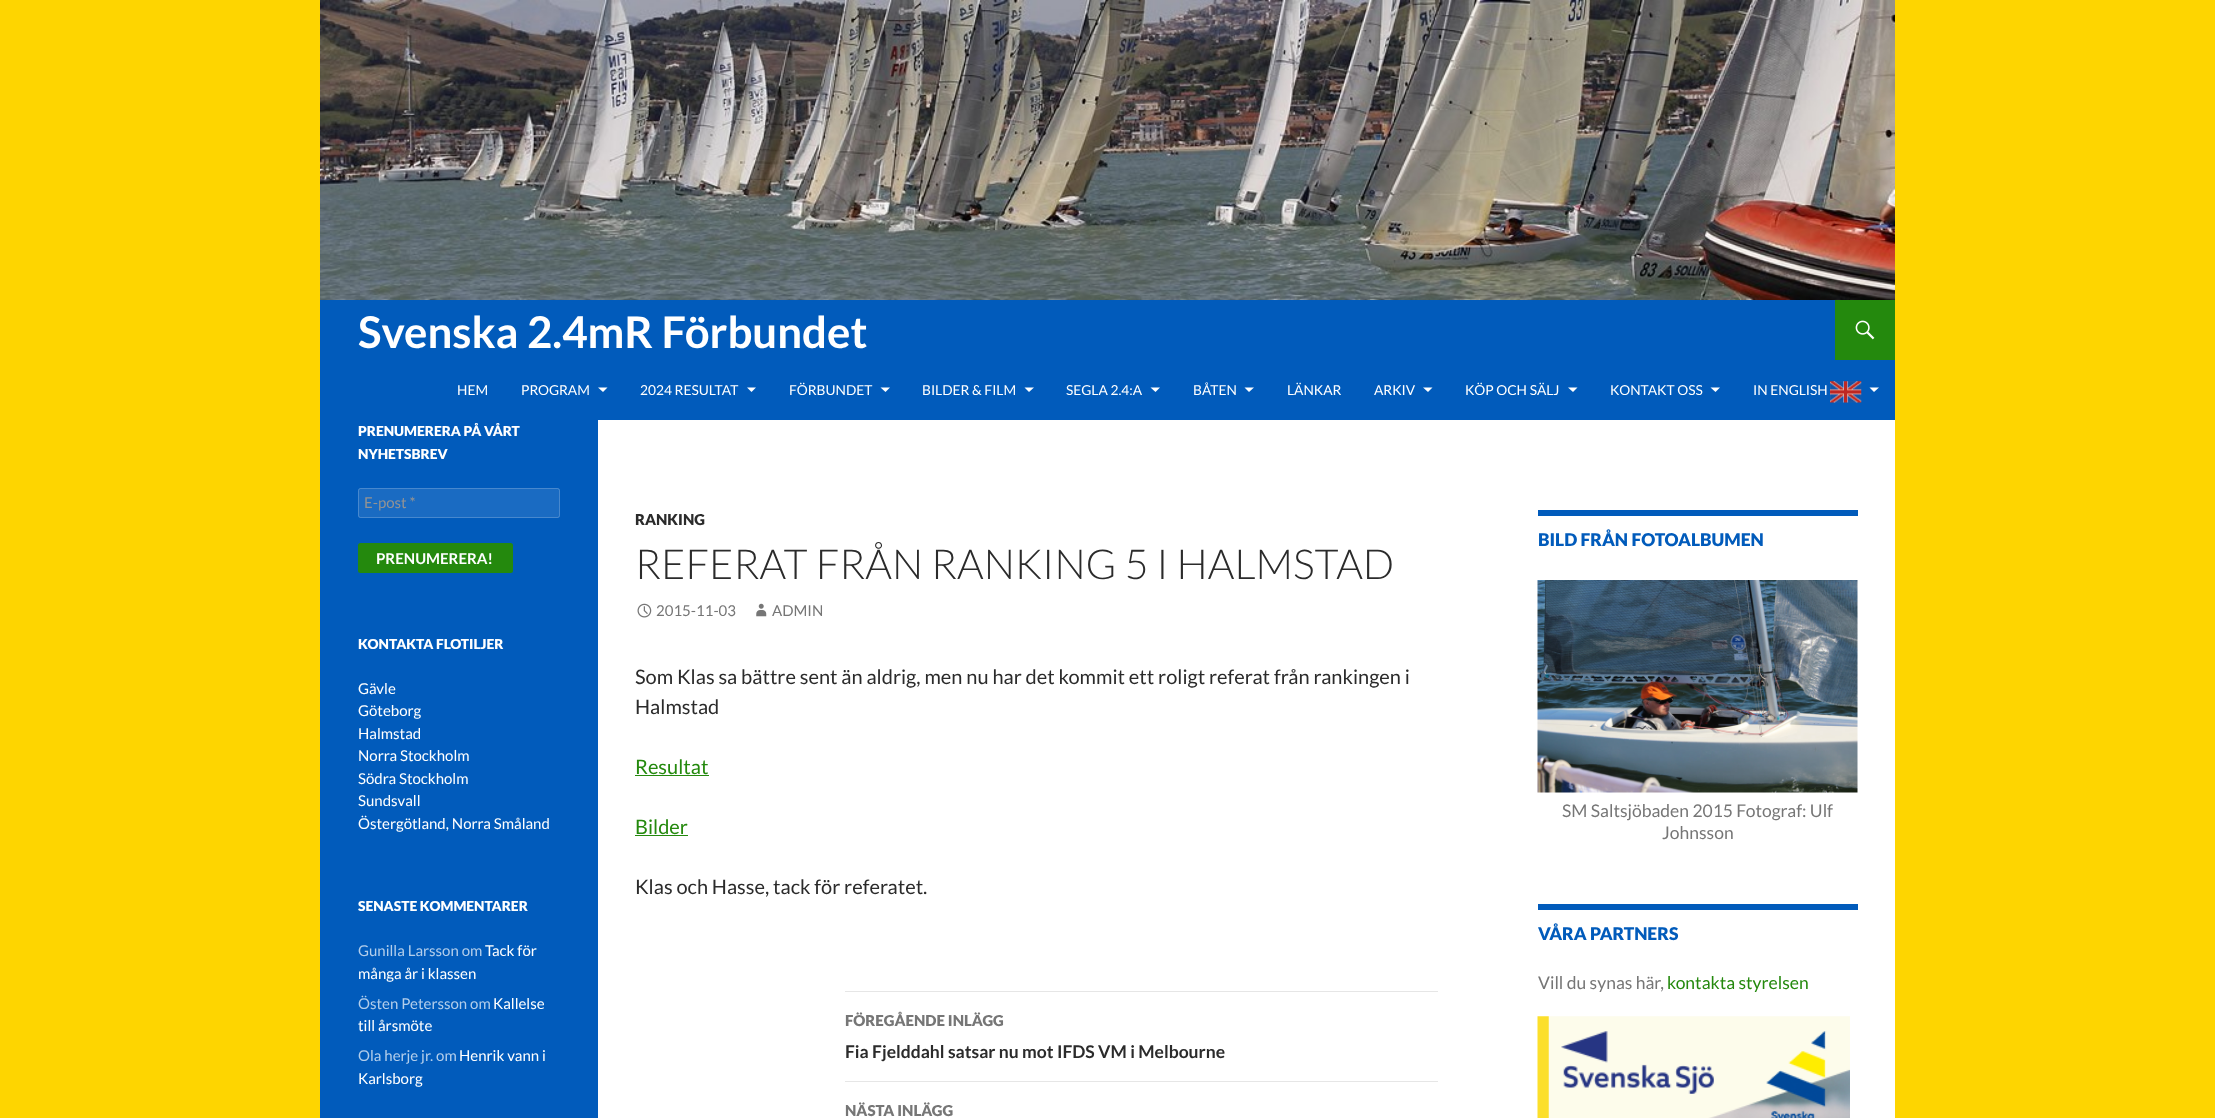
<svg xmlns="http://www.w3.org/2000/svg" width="2215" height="1118">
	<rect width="100%" height="100%" fill="#FED500" />
	<rect x="598" y="420" width="1297" height="698" fill="#FFFFFF" />
	<image x="320" y="0" width="1575" height="300" href="assets/img1.png" />
	<rect x="320" y="300" width="1575" height="120" fill="#015BBB" />
	<text x="358" y="348" font-family="Lato" font-size="43.75" font-weight="700" fill="#FFFFFF">Svenska 2.4mR Förbundet</text>
	<rect x="1835" y="300" width="60" height="60" fill="#24890D" />
	<image x="1855" y="320" width="20" height="20" href="assets/img2.png" />
	<g font-family="Lato" font-size="13.75" fill="#FFFFFF">
		<text x="457" y="395">HEM</text>
		<text x="521" y="395">PROGRAM</text>
	</g>
	<path d="M598 387.5L603 392L607.5 387.5Z" fill="#FFFFFF" />
	<text x="640" y="395" font-family="Lato" font-size="13.75" fill="#FFFFFF">2024 RESULTAT</text>
	<path d="M747 387.5L751.5 392L756 387.5Z" fill="#FFFFFF" />
	<text x="789" y="395" font-family="Lato" font-size="13.75" fill="#FFFFFF">FÖRBUNDET</text>
	<path d="M880.5 387.5L885.5 392L890 387.5Z" fill="#FFFFFF" />
	<text x="922" y="395" font-family="Lato" font-size="13.75" fill="#FFFFFF">BILDER &amp; FILM</text>
	<path d="M1024.5 387.5L1029 392L1034 387.5Z" fill="#FFFFFF" />
	<text x="1066" y="395" font-family="Lato" font-size="13.75" fill="#FFFFFF">SEGLA 2.4:A</text>
	<path d="M1150.5 387.5L1155.5 392L1160 387.5Z" fill="#FFFFFF" />
	<text x="1193" y="395" font-family="Lato" font-size="13.75" fill="#FFFFFF">BÅTEN</text>
	<path d="M1244.5 387.5L1249 392L1254 387.5Z" fill="#FFFFFF" />
	<g font-family="Lato" font-size="13.75" fill="#FFFFFF">
		<text x="1287" y="395">LÄNKAR</text>
		<text x="1374" y="395">ARKIV</text>
	</g>
	<path d="M1423 387.5L1428 392L1432.5 387.5Z" fill="#FFFFFF" />
	<text x="1465" y="395" font-family="Lato" font-size="13.75" fill="#FFFFFF">KÖP OCH SÄLJ</text>
	<path d="M1568 387.5L1573 392L1577.5 387.5Z" fill="#FFFFFF" />
	<text x="1610" y="395" font-family="Lato" font-size="13.75" fill="#FFFFFF">KONTAKT OSS</text>
	<path d="M1710.5 387.5L1715.5 392L1720 387.5Z" fill="#FFFFFF" />
	<text x="1753" y="395" font-family="Lato" font-size="13.75" fill="#FFFFFF">IN ENGLISH</text>
	<image x="1830" y="381" width="32" height="22" href="assets/img3.png" />
	<path d="M1869.5 387.5L1874 392L1879 387.5Z" fill="#FFFFFF" />
	<rect x="320" y="420" width="278" height="698" fill="#015BBB" />
	<g font-family="Lato" font-size="13.75" font-weight="900" fill="#FFFFFF">
		<text x="358" y="436">PRENUMERERA PÅ VÅRT</text>
		<text x="358" y="459">NYHETSBREV</text>
	</g>
	<rect x="358" y="488" width="202" height="30" rx="2.5" fill="#1A6BC2" />
	<rect x="358.5" y="488.5" width="201" height="29" rx="2" fill="none" stroke="#FFFFFF" stroke-opacity="0.2" />
	<text x="364" y="508" font-family="Lato" font-size="15" fill="#939393">E-post *</text>
	<rect x="358" y="543" width="155" height="30" rx="2.5" fill="#24890D" />
	<text x="376" y="564" font-family="Lato" font-size="15" font-weight="700" fill="#FFFFFF">PRENUMERERA!</text>
	<text x="358" y="649" font-family="Lato" font-size="13.75" font-weight="900" fill="#FFFFFF">KONTAKTA FLOTILJER</text>
	<g font-family="Lato" font-size="15" fill="#FFFFFF">
		<text x="358" y="694">Gävle</text>
		<text x="358" y="716">Göteborg</text>
		<text x="358" y="739">Halmstad</text>
		<text x="358" y="761">Norra Stockholm</text>
		<text x="358" y="784">Södra Stockholm</text>
		<text x="358" y="806">Sundsvall</text>
		<text x="358" y="829">Östergötland, Norra Småland</text>
	</g>
	<text x="358" y="911" font-family="Lato" font-size="13.75" font-weight="900" fill="#FFFFFF">SENASTE KOMMENTARER</text>
	<text x="358" y="956" font-family="Lato" font-size="15" fill="#B3CEEB">Gunilla Larsson om</text>
	<g font-family="Lato" font-size="15" fill="#FFFFFF">
		<text x="485" y="956">Tack för</text>
		<text x="358" y="979">många år i klassen</text>
	</g>
	<text x="358" y="1009" font-family="Lato" font-size="15" fill="#B3CEEB">Östen Petersson om</text>
	<g font-family="Lato" font-size="15" fill="#FFFFFF">
		<text x="493" y="1009">Kallelse</text>
		<text x="358" y="1031">till årsmöte</text>
	</g>
	<text x="358" y="1061" font-family="Lato" font-size="15" fill="#B3CEEB">Ola herje jr. om</text>
	<g font-family="Lato" font-size="15" fill="#FFFFFF">
		<text x="459" y="1061">Henrik vann i</text>
		<text x="358" y="1084">Karlsborg</text>
	</g>
	<text x="635" y="525" font-family="Lato" font-size="15" font-weight="900" fill="#2B2B2B">RANKING</text>
	<text x="635" y="579" font-family="Lato" font-size="41.25" font-weight="300" fill="#2B2B2B">REFERAT FRÅN RANKING 5 I HALMSTAD</text>
	<image x="637" y="603" width="15" height="15" href="assets/img4.png" />
	<text x="656" y="616" font-family="Lato" font-size="15" fill="#767676">2015-11-03</text>
	<image x="756" y="603" width="11" height="14" href="assets/img5.png" />
	<text x="772" y="616" font-family="Lato" font-size="15" fill="#767676">ADMIN</text>
	<g font-family="Lato" font-size="20" fill="#2B2B2B">
		<text x="635" y="684">Som Klas sa bättre sent än aldrig, men nu har det kommit ett roligt referat från rankingen i</text>
		<text x="635" y="714">Halmstad</text>
	</g>
	<text x="635" y="774" font-family="Lato" font-size="20" fill="#24890D">Resultat</text>
	<rect x="635" y="775" width="74" height="1" fill="#24890D" />
	<text x="635" y="834" font-family="Lato" font-size="20" fill="#24890D">Bilder</text>
	<rect x="635" y="835" width="53" height="1" fill="#24890D" />
	<text x="635" y="894" font-family="Lato" font-size="20" fill="#2B2B2B">Klas och Hasse, tack för referatet.</text>
	<rect x="845" y="991" width="593" height="1" fill="#E6E6E6" />
	<rect x="845" y="1081" width="593" height="1" fill="#E6E6E6" />
	<text x="845" y="1026" font-family="Lato" font-size="15" font-weight="900" fill="#767676">FÖREGÅENDE INLÄGG</text>
	<text x="845" y="1058" font-family="Lato" font-size="17.5" font-weight="700" fill="#2B2B2B">Fia Fjelddahl satsar nu mot IFDS VM i Melbourne</text>
	<text x="845" y="1116" font-family="Lato" font-size="15" font-weight="900" fill="#767676">NÄSTA INLÄGG</text>
	<rect x="1538" y="510" width="320" height="6" fill="#015BBB" />
	<text x="1538" y="546" font-family="Lato" font-size="17.5" font-weight="900" fill="#015BBB">BILD FRÅN FOTOALBUMEN</text>
	<image x="1537" y="580" width="321" height="213" href="assets/img6.png" />
	<g font-family="Lato" font-size="17.5" fill="#767676">
		<text x="1562" y="817">SM Saltsjöbaden 2015 Fotograf: Ulf</text>
		<text x="1662" y="839">Johnsson</text>
	</g>
	<rect x="1538" y="904" width="320" height="6" fill="#015BBB" />
	<text x="1538" y="940" font-family="Lato" font-size="17.5" font-weight="900" fill="#015BBB">VÅRA PARTNERS</text>
	<text x="1538" y="989" font-family="Lato" font-size="17.5" fill="#767676">Vill du synas här,</text>
	<text x="1667" y="989" font-family="Lato" font-size="17.5" fill="#24890D">kontakta styrelsen</text>
	<image x="1537" y="1016" width="313" height="102" href="assets/img7.png" />
</svg>
